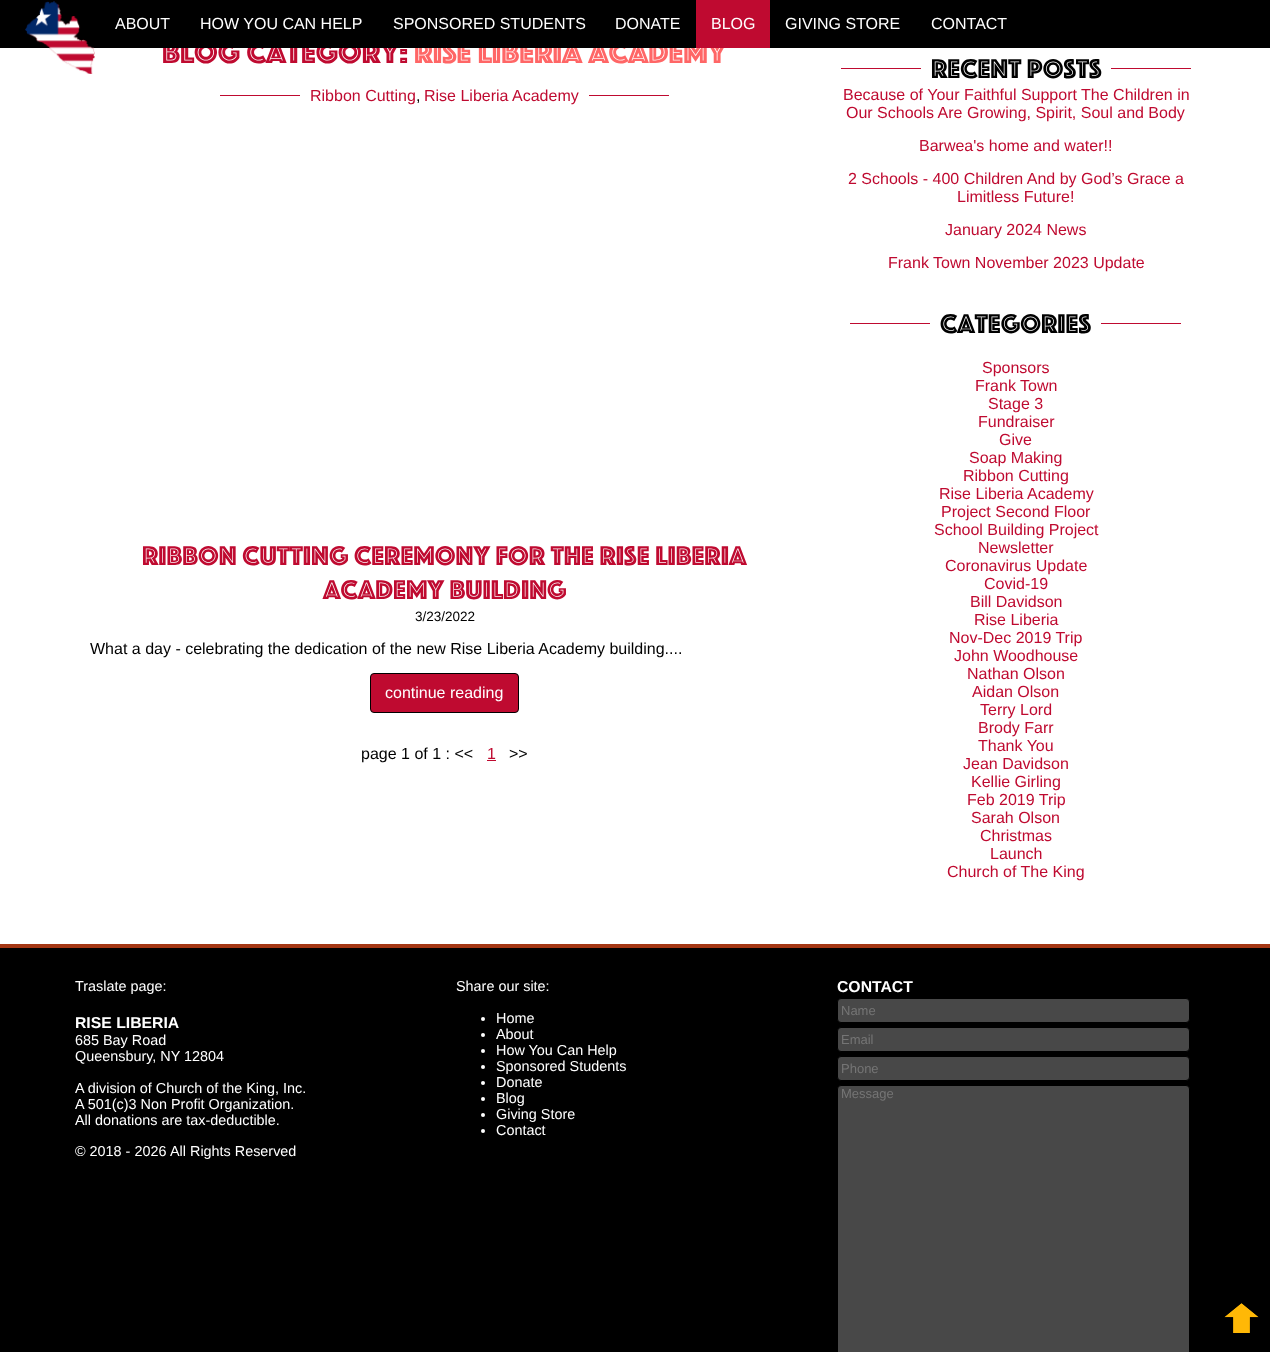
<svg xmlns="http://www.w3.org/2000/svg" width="1270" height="1352">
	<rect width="100%" height="100%" fill="#FFFFFF" />
	<text x="162" y="63" font-family="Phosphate" font-size="32" fill="#BF0A30">Blog Category:</text>
	<text x="414" y="63" font-family="Phosphate" font-size="32" fill="#FF6666">Rise Liberia Academy</text>
	<rect x="0" y="0" width="1270" height="48" fill="#000000" />
	<image x="25" y="1" width="70" height="73" href="assets/img1.png" />
	<g font-family="Liberation Sans" font-size="16" fill="#FFFFFF">
		<text x="115" y="29">ABOUT</text>
		<text x="200" y="29">HOW YOU CAN HELP</text>
		<text x="393" y="29">SPONSORED STUDENTS</text>
		<text x="615" y="29">DONATE</text>
	</g>
	<rect x="696" y="0" width="74" height="48" fill="#BF0A30" />
	<g font-family="Liberation Sans" font-size="16" fill="#FFFFFF">
		<text x="711" y="29">BLOG</text>
		<text x="785" y="29">GIVING STORE</text>
		<text x="931" y="29">CONTACT</text>
	</g>
	<rect x="220" y="95" width="80" height="1" fill="#BF0A30" />
	<g font-family="Liberation Sans" font-size="16" fill="#BF0A30">
		<text x="310" y="101">Ribbon Cutting</text>
		<text x="424" y="101">Rise Liberia Academy</text>
	</g>
	<rect x="589" y="95" width="80" height="1" fill="#BF0A30" />
	<text x="416" y="101" font-family="Liberation Sans" font-size="16" fill="#000000">,</text>
	<g font-family="Phosphate" font-size="28" fill="#BF0A30">
		<text x="142" y="565">Ribbon Cutting Ceremony for the Rise Liberia</text>
		<text x="323" y="599">Academy building</text>
	</g>
	<text x="415" y="621" font-family="Liberation Sans" font-size="13.5" fill="#000000">3/23/2022</text>
	<text x="90" y="654" font-family="Liberation Sans" font-size="16" fill="#000000">What a day - celebrating the dedication of the new Rise Liberia Academy building....</text>
	<rect x="370.5" y="673.5" width="148" height="39" rx="3.5" fill="#BF0A30" stroke="#000000" />
	<text x="385" y="698" font-family="Liberation Sans" font-size="16" fill="#FFFFFF">continue reading</text>
	<text x="361" y="759" font-family="Liberation Sans" font-size="16" fill="#000000">page 1 of 1 : &lt;&lt;</text>
	<text x="487" y="759" font-family="Liberation Sans" font-size="16" fill="#BF0A30">1</text>
	<rect x="487" y="760" width="9" height="1" fill="#BF0A30" />
	<text x="509" y="759" font-family="Liberation Sans" font-size="16" fill="#000000">&gt;&gt;</text>
	<rect x="841" y="68" width="80" height="1" fill="#BF0A30" />
	<text x="931" y="78" font-family="Phosphate" font-size="28" fill="#000000">Recent Posts</text>
	<rect x="1111" y="68" width="80" height="1" fill="#BF0A30" />
	<g font-family="Liberation Sans" font-size="16" fill="#BF0A30">
		<text x="843" y="100">Because of Your Faithful Support The Children in</text>
		<text x="846" y="118">Our Schools Are Growing, Spirit, Soul and Body</text>
		<text x="919" y="151">Barwea's home and water!!</text>
		<text x="848" y="184">2 Schools - 400 Children And by God’s Grace a</text>
		<text x="957" y="202">Limitless Future!</text>
		<text x="945" y="235">January 2024 News</text>
		<text x="888" y="268">Frank Town November 2023 Update</text>
	</g>
	<rect x="850" y="323" width="80" height="1" fill="#BF0A30" />
	<text x="940" y="333" font-family="Phosphate" font-size="28" fill="#000000">Categories</text>
	<rect x="1101" y="323" width="80" height="1" fill="#BF0A30" />
	<g font-family="Liberation Sans" font-size="16" fill="#BF0A30">
		<text x="982" y="373">Sponsors</text>
		<text x="975" y="391">Frank Town</text>
		<text x="988" y="409">Stage 3</text>
		<text x="978" y="427">Fundraiser</text>
		<text x="999" y="445">Give</text>
		<text x="969" y="463">Soap Making</text>
		<text x="963" y="481">Ribbon Cutting</text>
		<text x="939" y="499">Rise Liberia Academy</text>
		<text x="941" y="517">Project Second Floor</text>
		<text x="934" y="535">School Building Project</text>
		<text x="978" y="553">Newsletter</text>
		<text x="945" y="571">Coronavirus Update</text>
		<text x="984" y="589">Covid-19</text>
		<text x="970" y="607">Bill Davidson</text>
		<text x="974" y="625">Rise Liberia</text>
		<text x="949" y="643">Nov-Dec 2019 Trip</text>
		<text x="954" y="661">John Woodhouse</text>
		<text x="967" y="679">Nathan Olson</text>
		<text x="972" y="697">Aidan Olson</text>
		<text x="980" y="715">Terry Lord</text>
		<text x="978" y="733">Brody Farr</text>
		<text x="978" y="751">Thank You</text>
		<text x="963" y="769">Jean Davidson</text>
		<text x="971" y="787">Kellie Girling</text>
		<text x="967" y="805">Feb 2019 Trip</text>
		<text x="971" y="823">Sarah Olson</text>
		<text x="980" y="841">Christmas</text>
		<text x="990" y="859">Launch</text>
		<text x="947" y="877">Church of The King</text>
	</g>
	<rect x="0" y="948" width="1270" height="404" fill="#000000" />
	<rect x="0" y="944" width="1270" height="4" fill="#A43613" />
	<text x="75" y="991" font-family="Liberation Sans" font-size="14.4" fill="#FFFFFF">Traslate page:</text>
	<text x="75" y="1028" font-family="Liberation Sans" font-size="15.75" font-weight="700" fill="#FFFFFF">RISE LIBERIA</text>
	<g font-family="Liberation Sans" font-size="14.4" fill="#FFFFFF">
		<text x="75" y="1045">685 Bay Road</text>
		<text x="75" y="1061">Queensbury, NY 12804</text>
		<text x="75" y="1093">A division of Church of the King, Inc.</text>
		<text x="75" y="1109">A 501(c)3 Non Profit Organization.</text>
		<text x="75" y="1125">All donations are tax-deductible.</text>
		<text x="75" y="1156">© 2018 - 2026</text>
		<text x="170" y="1156">All Rights Reserved</text>
		<text x="456" y="991">Share our site:</text>
	</g>
	<circle cx="483" cy="1019" r="2" fill="#FFFFFF" />
	<text x="496" y="1023" font-family="Liberation Sans" font-size="14.4" fill="#FFFFFF">Home</text>
	<circle cx="483" cy="1035" r="2" fill="#FFFFFF" />
	<text x="496" y="1039" font-family="Liberation Sans" font-size="14.4" fill="#FFFFFF">About</text>
	<circle cx="483" cy="1051" r="2" fill="#FFFFFF" />
	<text x="496" y="1055" font-family="Liberation Sans" font-size="14.4" fill="#FFFFFF">How You Can Help</text>
	<circle cx="483" cy="1067" r="2" fill="#FFFFFF" />
	<text x="496" y="1071" font-family="Liberation Sans" font-size="14.4" fill="#FFFFFF">Sponsored Students</text>
	<circle cx="483" cy="1083" r="2" fill="#FFFFFF" />
	<text x="496" y="1087" font-family="Liberation Sans" font-size="14.4" fill="#FFFFFF">Donate</text>
	<circle cx="483" cy="1099" r="2" fill="#FFFFFF" />
	<text x="496" y="1103" font-family="Liberation Sans" font-size="14.4" fill="#FFFFFF">Blog</text>
	<circle cx="483" cy="1115" r="2" fill="#FFFFFF" />
	<text x="496" y="1119" font-family="Liberation Sans" font-size="14.4" fill="#FFFFFF">Giving Store</text>
	<circle cx="483" cy="1131" r="2" fill="#FFFFFF" />
	<text x="496" y="1135" font-family="Liberation Sans" font-size="14.4" fill="#FFFFFF">Contact</text>
	<text x="837" y="992" font-family="Liberation Sans" font-size="15.75" font-weight="700" fill="#FFFFFF">CONTACT</text>
	<rect x="837.5" y="998.5" width="352" height="24" rx="3.5" fill="#484848" stroke="#000000" />
	<text x="841" y="1015" font-family="Liberation Sans" font-size="13" fill="#757575">Name</text>
	<rect x="837.5" y="1027.5" width="352" height="24" rx="3.5" fill="#484848" stroke="#000000" />
	<text x="841" y="1044" font-family="Liberation Sans" font-size="13" fill="#757575">Email</text>
	<rect x="837.5" y="1056.5" width="352" height="24" rx="3.5" fill="#484848" stroke="#000000" />
	<text x="841" y="1073" font-family="Liberation Sans" font-size="13" fill="#757575">Phone</text>
	<rect x="837.5" y="1085.5" width="352" height="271" rx="3.5" fill="#484848" stroke="#000000" />
	<text x="841" y="1098" font-family="Liberation Sans" font-size="13" fill="#757575">Message</text>
	<image x="1224" y="1303" width="35" height="30" href="assets/img2.png" />
</svg>
